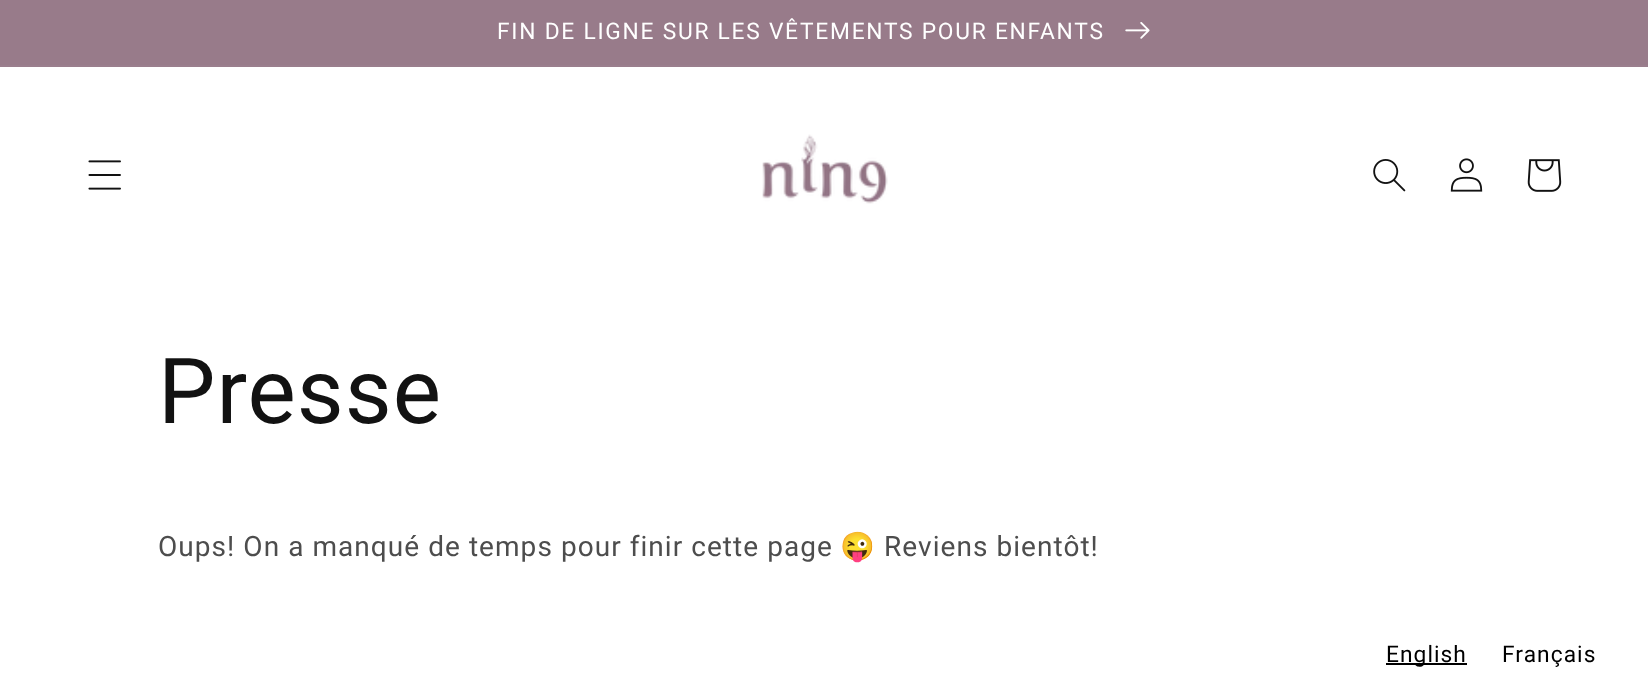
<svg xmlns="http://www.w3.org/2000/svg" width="1648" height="690">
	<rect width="100%" height="100%" fill="#FFFFFF" />
	<rect x="0" y="65" width="1648" height="2" fill="#9A7E8D" />
	<rect x="0" y="0" width="1648" height="65" fill="#987B8A" />
	<text x="497" y="39" font-family="Roboto" font-size="22.75" letter-spacing="1.75" fill="#FFFFFF">FIN DE LIGNE SUR LES VÊTEMENTS POUR ENFANTS</text>
	<image x="1125" y="22" width="25" height="17" href="assets/img1.png" />
	<image x="88" y="160" width="33" height="30" href="assets/img2.png" />
	<image x="762" y="134" width="126" height="70" href="assets/img3.png" />
	<image x="1373" y="159" width="33" height="33" href="assets/img4.png" />
	<image x="1450" y="158" width="33" height="34" href="assets/img5.png" />
	<image x="1527" y="159" width="35" height="33" href="assets/img6.png" />
	<text x="158" y="423" font-family="Roboto" font-size="91" letter-spacing="1.05" fill="#121212">Presse</text>
	<text x="158" y="556" font-family="Roboto" font-size="28" letter-spacing="1.05" fill="#4D4D4D">Oups! On a manqué de temps pour finir cette page</text>
	<text x="840" y="556" font-family="Noto Color Emoji" font-size="28" letter-spacing="1.05" fill="#4D4D4D">😜</text>
	<text x="884" y="556" font-family="Roboto" font-size="28" letter-spacing="1.05" fill="#4D4D4D">Reviens bientôt!</text>
	<rect x="1386" y="663" width="81" height="2" fill="#000000" />
	<g font-family="Roboto" font-size="22.75" letter-spacing="1.05" fill="#000000">
		<text x="1386" y="662">English</text>
		<text x="1502" y="662">Français</text>
	</g>
</svg>
